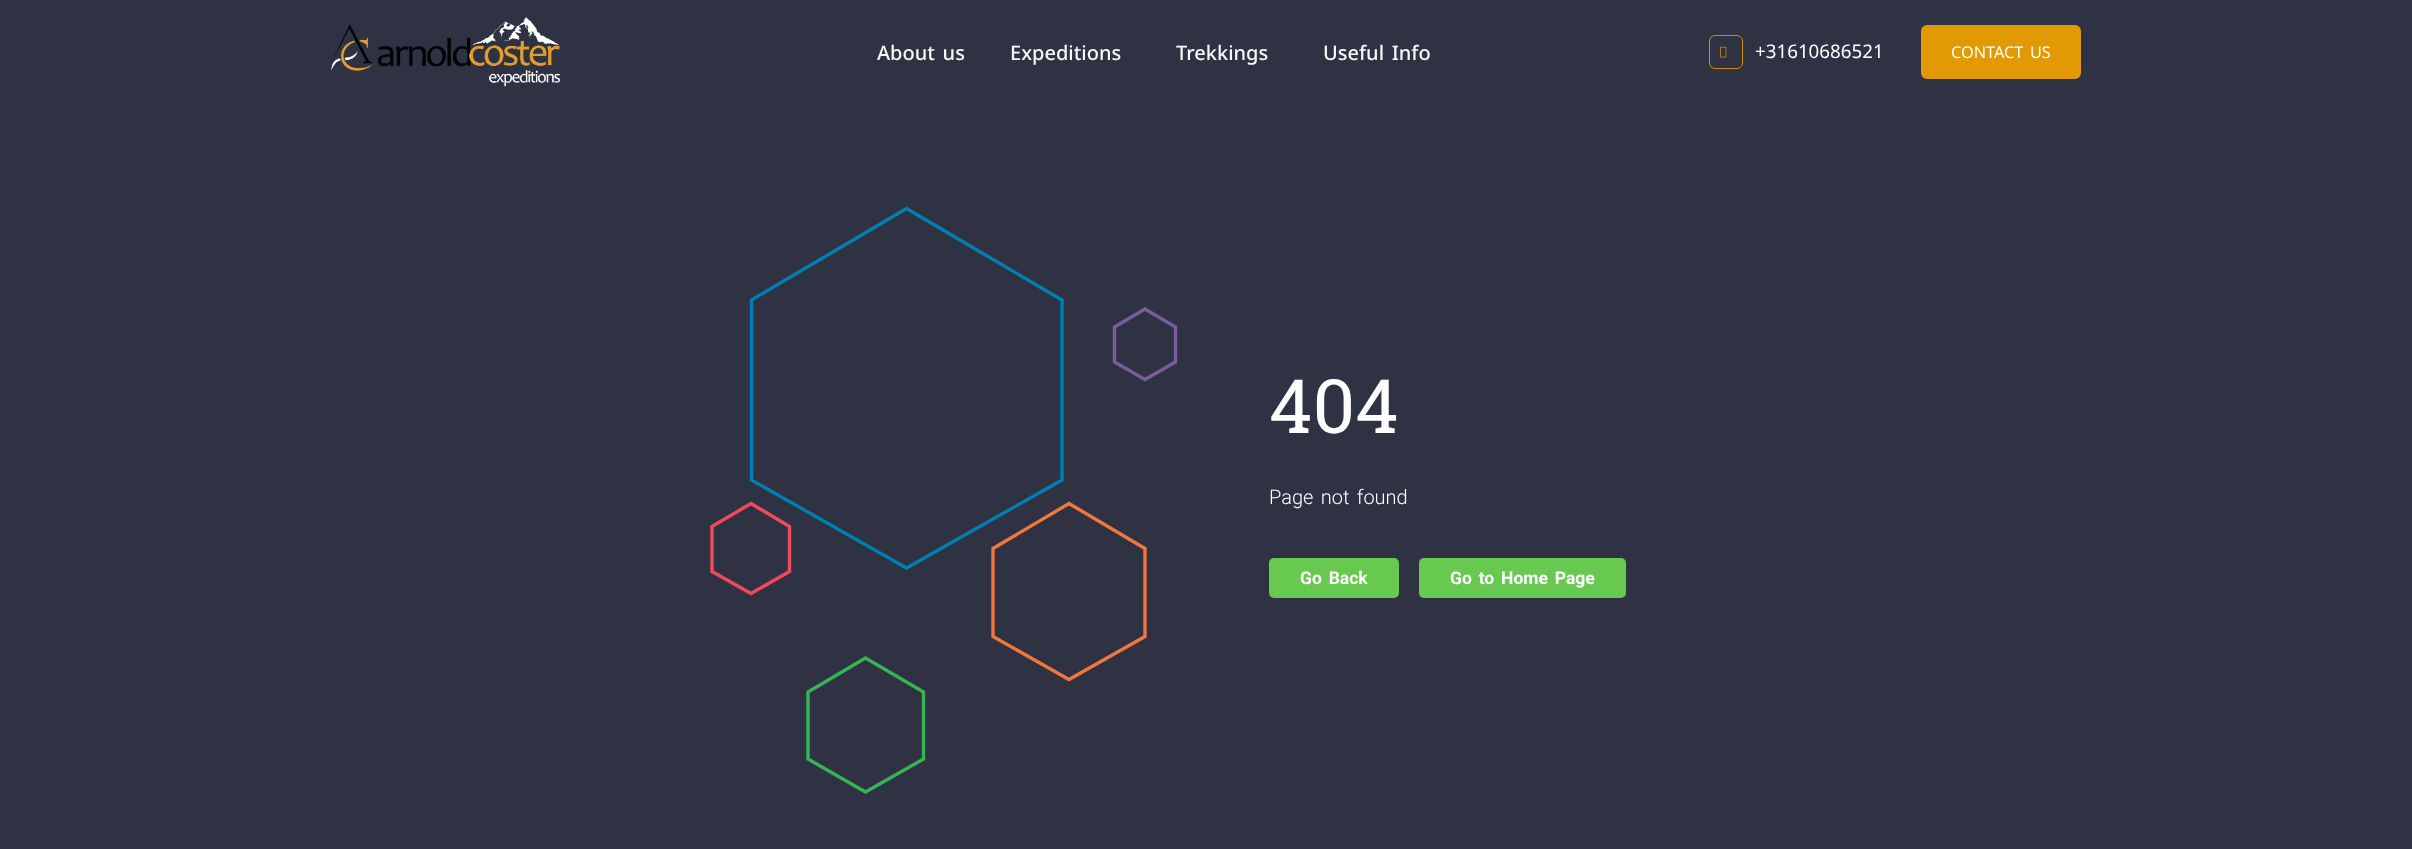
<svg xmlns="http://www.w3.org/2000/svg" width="2412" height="849">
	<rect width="100%" height="100%" fill="#2F3242" />
	<image x="331" y="17" width="229" height="70" href="assets/img1.png" />
	<g font-family="Noto Sans" font-size="20" font-weight="500" fill="#F7F7F7">
		<text x="877" y="60" word-spacing="2.5">About us</text>
		<text x="1010" y="60">Expeditions</text>
		<text x="1176" y="60">Trekkings</text>
		<text x="1323" y="60" word-spacing="2.5">Useful Info</text>
	</g>
	<rect x="1709.5" y="35.5" width="33" height="33" rx="5.5" fill="none" stroke="#CD8D06" />
	<image x="1720" y="46" width="7" height="12" href="assets/img2.png" />
	<text x="1755" y="58" font-family="Noto Sans" font-size="18.75" fill="#FFFFFF">+31610686521</text>
	<rect x="1921" y="25" width="160" height="54" rx="6" fill="#E19A03" />
	<text x="1951" y="58" word-spacing="2.5" font-family="Noto Sans" font-size="16.25" fill="#FFFFFF">CONTACT US</text>
	<path d="M906.5 208.5L1062 300V480L906.5 568L751.5 480V300Z" fill="none" stroke="#007FB2" stroke-width="3.4" />
	<path d="M751 503.5L789.5 526.5V571.5L751 593.5L712 571.5V526.5Z" fill="none" stroke="#EF4A5B" stroke-width="3.4" />
	<path d="M1145 309L1175.5 327V362L1145 379.5L1114.5 362V327Z" fill="none" stroke="#795D9C" stroke-width="3.4" />
	<path d="M1069 503.5L1145 548.5V636.5L1069 679.5L993 636.5V548.5Z" fill="none" stroke="#F2773F" stroke-width="3.4" />
	<path d="M865.5 658L923.5 692V759L865.5 792L808 759V692Z" fill="none" stroke="#36B455" stroke-width="3.4" />
	<text x="1269" y="433" font-family="Roboto Slab" font-size="75" fill="#FFFFFF">404</text>
	<text x="1269" y="504" word-spacing="2.5" font-family="Roboto" font-size="20" font-weight="300" fill="#FFFFFF">Page not found</text>
	<rect x="1269" y="558" width="130" height="40" rx="5" fill="#68C950" />
	<text x="1300" y="584" word-spacing="2.5" font-family="Roboto" font-size="17.5" font-weight="700" fill="#FFFFFF">Go Back</text>
	<rect x="1419" y="558" width="207" height="40" rx="5" fill="#68C950" />
	<text x="1450" y="584" word-spacing="2.5" font-family="Roboto" font-size="17.5" font-weight="700" fill="#FFFFFF">Go to Home Page</text>
</svg>
